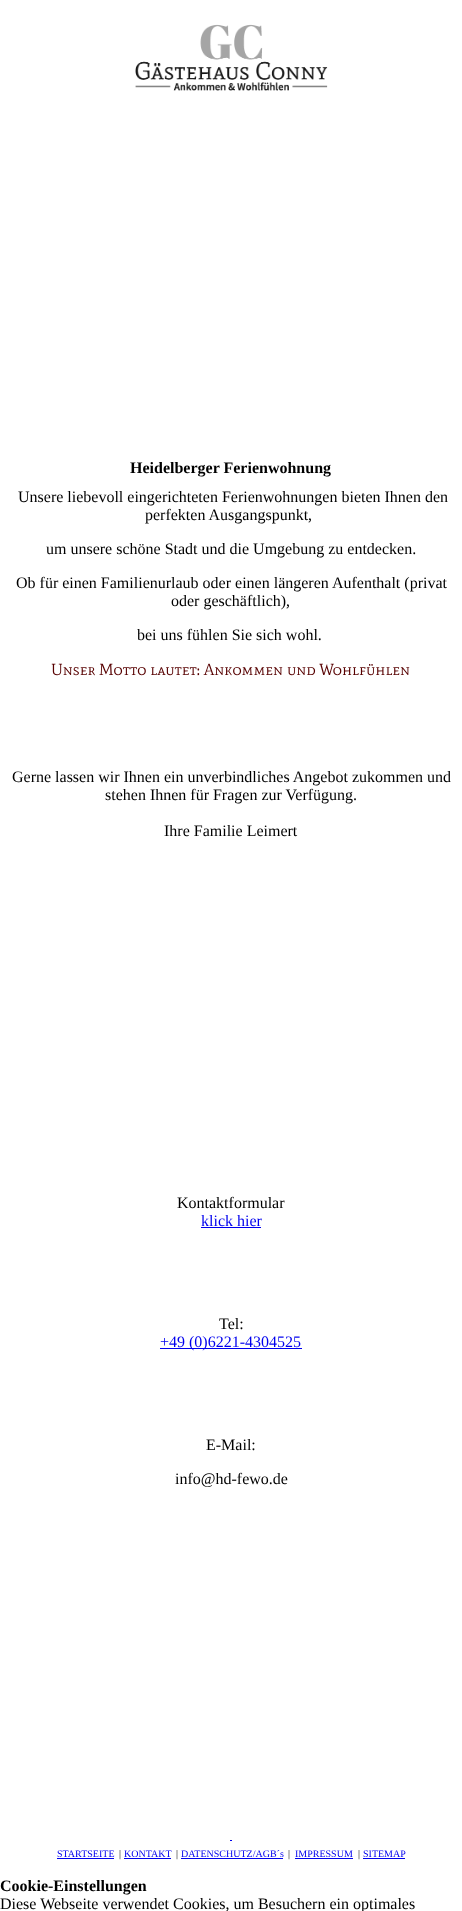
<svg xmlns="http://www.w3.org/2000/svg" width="462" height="1911">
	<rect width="100%" height="100%" fill="#FFFFFF" />
	<image x="135" y="24" width="193" height="67" href="assets/img1.png" />
	<text x="130" y="473" font-family="Liberation Serif" font-size="16" font-weight="700" fill="#000000">Heidelberger Ferienwohnung</text>
	<g font-family="Liberation Serif" font-size="16" fill="#000000">
		<text x="18" y="502">Unsere liebevoll eingerichteten Ferienwohnungen bieten Ihnen den</text>
		<text x="145" y="520">perfekten Ausgangspunkt,</text>
		<text x="46" y="554">um unsere schöne Stadt und die Umgebung zu entdecken.</text>
		<text x="16" y="588">Ob für einen Familienurlaub oder einen längeren Aufenthalt (privat</text>
		<text x="171" y="606">oder geschäftlich),</text>
		<text x="137" y="640">bei uns fühlen Sie sich wohl.</text>
	</g>
	<text x="51" y="675" font-family="Mate SC" font-size="16" fill="#570000">Unser Motto lautet: Ankommen und Wohlfühlen</text>
	<g font-family="Liberation Serif" font-size="16" fill="#000000">
		<text x="12" y="782">Gerne lassen wir Ihnen ein unverbindliches Angebot zukommen und</text>
		<text x="105" y="800">stehen Ihnen für Fragen zur Verfügung.</text>
		<text x="164" y="836">Ihre Familie Leimert</text>
		<text x="177" y="1208">Kontaktformular</text>
	</g>
	<text x="201" y="1226" font-family="Liberation Serif" font-size="16" fill="#0000EE">klick hier</text>
	<rect x="201" y="1227" width="60" height="1" fill="#0000EE" />
	<text x="219" y="1329" font-family="Liberation Serif" font-size="16" fill="#000000">Tel:</text>
	<rect x="160" y="1348" width="142" height="1" fill="#0000EE" />
	<text x="160" y="1347" font-family="Liberation Serif" font-size="16" fill="#0000EE">+49 (0)6221-4304525</text>
	<g font-family="Liberation Serif" font-size="16" fill="#000000">
		<text x="206" y="1450">E-Mail:</text>
		<text x="175" y="1484">info@hd-fewo.de</text>
	</g>
	<text x="57" y="1857" font-family="Liberation Serif" font-size="10" fill="#0000EE">STARTSEITE</text>
	<rect x="57" y="1858" width="57" height="1" fill="#0000EE" />
	<text x="119" y="1857" font-family="Liberation Serif" font-size="10" fill="#000000">|</text>
	<text x="124" y="1857" font-family="Liberation Serif" font-size="10" fill="#0000EE">KONTAKT</text>
	<rect x="124" y="1858" width="47" height="1" fill="#0000EE" />
	<text x="176" y="1857" font-family="Liberation Serif" font-size="10" fill="#000000">|</text>
	<text x="181" y="1857" font-family="Liberation Serif" font-size="10" fill="#0000EE">DATENSCHUTZ/AGB´s</text>
	<rect x="230" y="1840" width="2" height="1" fill="#0000EE" />
	<rect x="181" y="1858" width="102" height="1" fill="#0000EE" />
	<text x="288" y="1857" font-family="Liberation Serif" font-size="10" fill="#000000">|</text>
	<text x="295" y="1857" font-family="Liberation Serif" font-size="10" fill="#0000EE">IMPRESSUM</text>
	<rect x="295" y="1858" width="58" height="1" fill="#0000EE" />
	<text x="358" y="1857" font-family="Liberation Serif" font-size="10" fill="#000000">|</text>
	<text x="363" y="1857" font-family="Liberation Serif" font-size="10" fill="#0000EE">SITEMAP</text>
	<rect x="363" y="1858" width="42" height="1" fill="#0000EE" />
	<text x="0" y="1891" font-family="Liberation Serif" font-size="16" font-weight="700" fill="#000000">Cookie-Einstellungen</text>
	<text x="0" y="1909" font-family="Liberation Serif" font-size="16" fill="#000000">Diese Webseite verwendet Cookies, um Besuchern ein optimales</text>
</svg>
